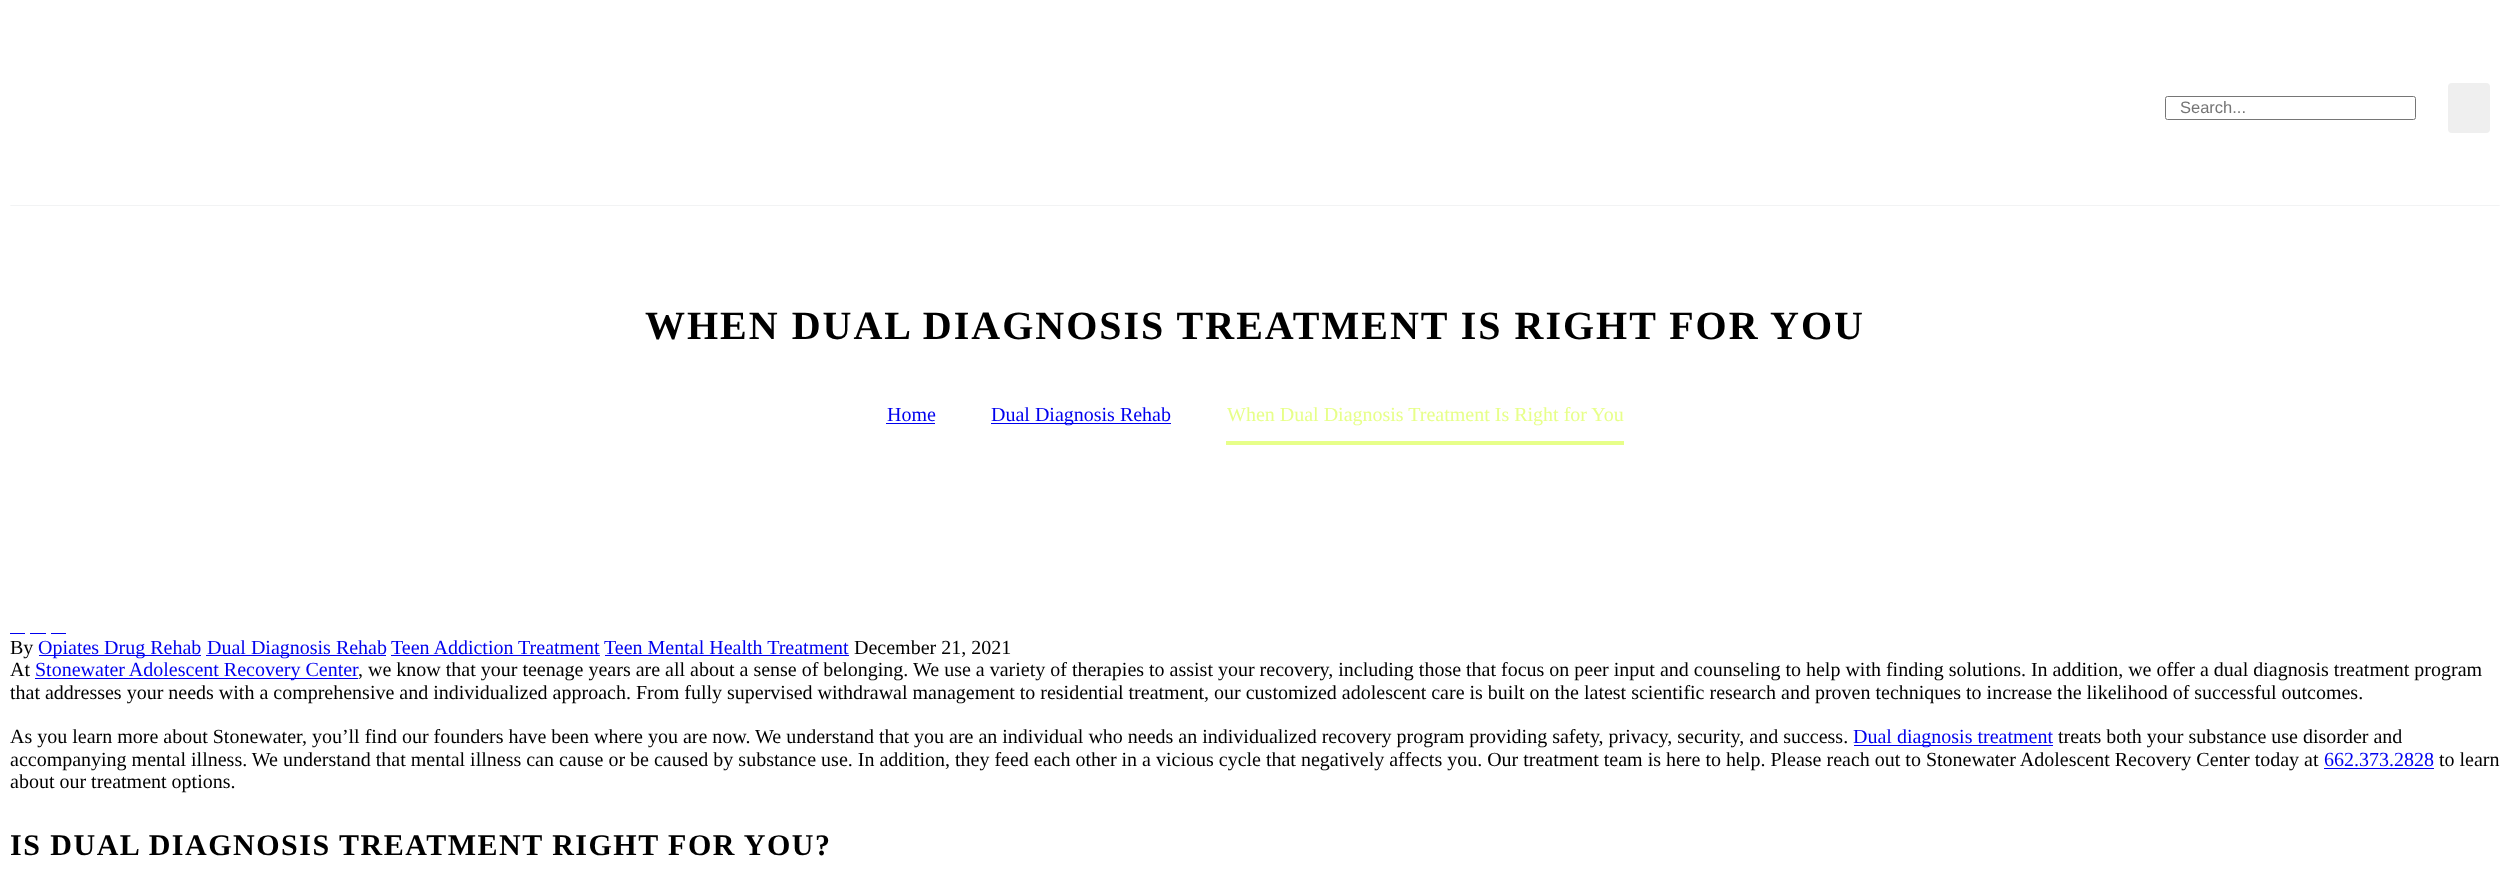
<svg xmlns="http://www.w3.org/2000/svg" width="2509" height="873">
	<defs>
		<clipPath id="clip1"><rect x="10" y="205" width="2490" height="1" /></clipPath>
	</defs>
	<rect width="100%" height="100%" fill="#FFFFFF" />
	<g clip-path="url(#clip1)">
		<rect x="10" y="10" width="2490" height="195" fill="#384554" fill-opacity="0.2" filter="blur(1px)" />
	</g>
	<rect x="2165.5" y="96.5" width="250" height="23" rx="2" fill="none" stroke="#767676" />
	<text x="2180" y="113" font-family="Liberation Sans" font-size="16.5" fill="#757575">Search...</text>
	<rect x="2448" y="83" width="42" height="50" rx="4" fill="#EFEFEF" />
	<text x="645" y="339" font-family="Liberation Serif" font-size="40" font-weight="700" letter-spacing="2" fill="#000000">WHEN DUAL DIAGNOSIS TREATMENT IS RIGHT FOR YOU</text>
	<text x="887" y="421" font-family="Liberation Serif" font-size="20" fill="#0000EE">Home</text>
	<rect x="886" y="423" width="49" height="1" fill="#0000EE" />
	<rect x="991" y="423" width="180" height="1" fill="#0000EE" />
	<text x="991" y="421" font-family="Liberation Serif" font-size="20" fill="#0000EE">Dual Diagnosis Rehab</text>
	<rect x="1226" y="441" width="398" height="4" fill="#E7FF89" />
	<text x="1227" y="421" font-family="Liberation Serif" font-size="20" fill="#E7FF89">When Dual Diagnosis Treatment Is Right for You</text>
	<rect x="10" y="633" width="15" height="1" fill="#0000EE" />
	<rect x="30" y="633" width="16" height="1" fill="#0000EE" />
	<rect x="51" y="633" width="15" height="1" fill="#0000EE" />
	<text x="10" y="654" font-family="Liberation Serif" font-size="20" fill="#000000">By</text>
	<rect x="39" y="655" width="162" height="1" fill="#0000EE" />
	<text x="38" y="654" font-family="Liberation Serif" font-size="20" fill="#0000EE">Opiates Drug Rehab</text>
	<rect x="206" y="655" width="180" height="1" fill="#0000EE" />
	<g font-family="Liberation Serif" font-size="20" fill="#0000EE">
		<text x="207" y="654">Dual Diagnosis Rehab</text>
		<text x="391" y="654">Teen Addiction Treatment</text>
	</g>
	<rect x="391" y="655" width="209" height="1" fill="#0000EE" />
	<text x="604" y="654" font-family="Liberation Serif" font-size="20" fill="#0000EE">Teen Mental Health Treatment</text>
	<rect x="605" y="655" width="244" height="1" fill="#0000EE" />
	<g font-family="Liberation Serif" font-size="20" fill="#000000">
		<text x="854" y="654">December 21, 2021</text>
		<text x="10" y="676">At</text>
	</g>
	<rect x="35" y="678" width="323" height="1" fill="#0000EE" />
	<text x="35" y="676" font-family="Liberation Serif" font-size="20" fill="#0000EE">Stonewater Adolescent Recovery Center</text>
	<g font-family="Liberation Serif" font-size="20" fill="#000000">
		<text x="358" y="676">, we know that your teenage years are all about a sense of belonging. We use a variety of therapies to assist your recovery, including those that focus on peer input and counseling to help with finding solutions. In addition, we offer a dual diagnosis treatment program</text>
		<text x="10" y="699">that addresses your needs with a comprehensive and individualized approach. From fully supervised withdrawal management to residential treatment, our customized adolescent care is built on the latest scientific research and proven techniques to increase the likelihood of successful outcomes.</text>
		<text x="10" y="743">As you learn more about Stonewater, you’ll find our founders have been where you are now. We understand that you are an individual who needs an individualized recovery program providing safety, privacy, security, and success.</text>
	</g>
	<rect x="1854" y="745" width="199" height="1" fill="#0000EE" />
	<text x="1853" y="743" font-family="Liberation Serif" font-size="20" fill="#0000EE">Dual diagnosis treatment</text>
	<g font-family="Liberation Serif" font-size="20" fill="#000000">
		<text x="2058" y="743">treats both your substance use disorder and</text>
		<text x="10" y="766">accompanying mental illness. We understand that mental illness can cause or be caused by substance use. In addition, they feed each other in a vicious cycle that negatively affects you. Our treatment team is here to help. Please reach out to Stonewater Adolescent Recovery Center today at</text>
	</g>
	<text x="2324" y="766" font-family="Liberation Serif" font-size="20" fill="#0000EE">662.373.2828</text>
	<rect x="2324" y="768" width="110" height="1" fill="#0000EE" />
	<g font-family="Liberation Serif" font-size="20" fill="#000000">
		<text x="2439" y="766">to learn</text>
		<text x="10" y="788">about our treatment options.</text>
	</g>
	<text x="10" y="855" font-family="Liberation Serif" font-size="30" font-weight="700" letter-spacing="1.5" fill="#000000">IS DUAL DIAGNOSIS TREATMENT RIGHT FOR YOU?</text>
</svg>
